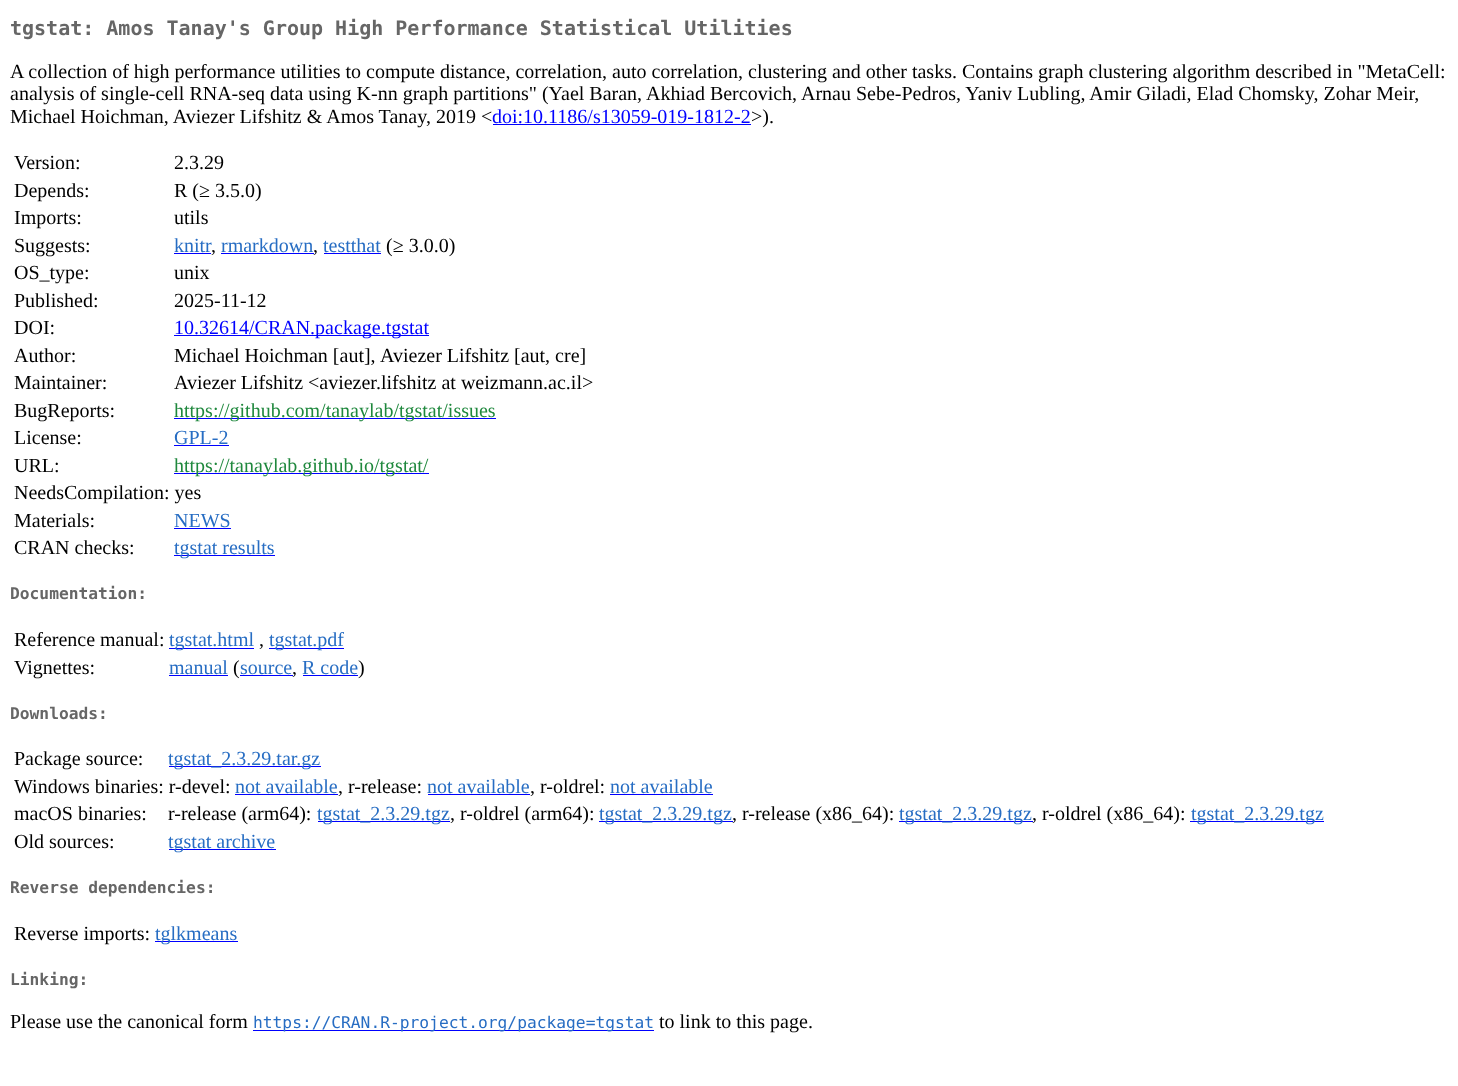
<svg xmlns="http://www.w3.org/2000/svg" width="1458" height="1086">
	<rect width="100%" height="100%" fill="#FFFFFF" />
	<text x="10" y="35" font-family="DejaVu Sans Mono" font-size="20" font-weight="700" fill="#666666">tgstat: Amos Tanay's Group High Performance Statistical Utilities</text>
	<g font-family="Liberation Serif" font-size="20" fill="#000000">
		<text x="10" y="78">A collection of high performance utilities to compute distance, correlation, auto correlation, clustering and other tasks. Contains graph clustering algorithm described in "MetaCell:</text>
		<text x="10" y="100">analysis of single-cell RNA-seq data using K-nn graph partitions" (Yael Baran, Akhiad Bercovich, Arnau Sebe-Pedros, Yaniv Lubling, Amir Giladi, Elad Chomsky, Zohar Meir,</text>
		<text x="10" y="123">Michael Hoichman, Aviezer Lifshitz &amp; Amos Tanay, 2019 &lt;</text>
	</g>
	<text x="492" y="123" font-family="Liberation Serif" font-size="20" fill="#0000FF">doi:10.1186/s13059-019-1812-2</text>
	<rect x="493" y="124" width="258" height="1" fill="#0000FF" />
	<g font-family="Liberation Serif" font-size="20" fill="#000000">
		<text x="751" y="123">&gt;).</text>
		<text x="14" y="169">Version:</text>
		<text x="174" y="169">2.3.29</text>
		<text x="14" y="197">Depends:</text>
		<text x="174" y="197">R (≥ 3.5.0)</text>
		<text x="14" y="224">Imports:</text>
		<text x="174" y="224">utils</text>
		<text x="14" y="252">Suggests:</text>
	</g>
	<text x="174" y="252" font-family="Liberation Serif" font-size="20" fill="#276DC3">knitr</text>
	<rect x="174" y="253" width="37" height="1" fill="#0000FF" />
	<text x="211" y="252" font-family="Liberation Serif" font-size="20" fill="#000000">,</text>
	<text x="221" y="252" font-family="Liberation Serif" font-size="20" fill="#276DC3">rmarkdown</text>
	<rect x="221" y="253" width="93" height="1" fill="#0000FF" />
	<text x="313" y="252" font-family="Liberation Serif" font-size="20" fill="#000000">,</text>
	<text x="323" y="252" font-family="Liberation Serif" font-size="20" fill="#276DC3">testthat</text>
	<rect x="324" y="253" width="57" height="1" fill="#0000FF" />
	<g font-family="Liberation Serif" font-size="20" fill="#000000">
		<text x="386" y="252">(≥ 3.0.0)</text>
		<text x="14" y="279">OS_type:</text>
		<text x="174" y="279">unix</text>
		<text x="14" y="307">Published:</text>
		<text x="174" y="307">2025-11-12</text>
		<text x="14" y="334">DOI:</text>
	</g>
	<rect x="174" y="335" width="255" height="1" fill="#0000FF" />
	<text x="174" y="334" font-family="Liberation Serif" font-size="20" fill="#0000FF">10.32614/CRAN.package.tgstat</text>
	<g font-family="Liberation Serif" font-size="20" fill="#000000">
		<text x="14" y="362">Author:</text>
		<text x="174" y="362">Michael Hoichman [aut],</text>
		<text x="380" y="362">Aviezer Lifshitz [aut, cre]</text>
		<text x="14" y="389">Maintainer:</text>
		<text x="174" y="389">Aviezer Lifshitz &lt;aviezer.lifshitz at weizmann.ac.il&gt;</text>
		<text x="14" y="417">BugReports:</text>
	</g>
	<rect x="174" y="418" width="322" height="1" fill="#0000FF" />
	<text x="174" y="417" font-family="Liberation Serif" font-size="20" fill="#1F883D">https://github.com/tanaylab/tgstat/issues</text>
	<text x="14" y="444" font-family="Liberation Serif" font-size="20" fill="#000000">License:</text>
	<text x="174" y="444" font-family="Liberation Serif" font-size="20" fill="#276DC3">GPL-2</text>
	<rect x="174" y="445" width="55" height="1" fill="#0000FF" />
	<text x="14" y="472" font-family="Liberation Serif" font-size="20" fill="#000000">URL:</text>
	<rect x="174" y="473" width="255" height="1" fill="#0000FF" />
	<text x="174" y="472" font-family="Liberation Serif" font-size="20" fill="#1F883D">https://tanaylab.github.io/tgstat/</text>
	<g font-family="Liberation Serif" font-size="20" fill="#000000">
		<text x="14" y="499">NeedsCompilation: yes</text>
		<text x="14" y="527">Materials:</text>
	</g>
	<text x="174" y="527" font-family="Liberation Serif" font-size="20" fill="#276DC3">NEWS</text>
	<rect x="174" y="528" width="57" height="1" fill="#0000FF" />
	<text x="14" y="554" font-family="Liberation Serif" font-size="20" fill="#000000">CRAN checks:</text>
	<rect x="174" y="555" width="101" height="1" fill="#0000FF" />
	<text x="174" y="554" font-family="Liberation Serif" font-size="20" fill="#276DC3">tgstat results</text>
	<text x="10" y="599" font-family="DejaVu Sans Mono" font-size="16.25" font-weight="700" fill="#666666">Documentation:</text>
	<text x="14" y="646" font-family="Liberation Serif" font-size="20" fill="#000000">Reference manual:</text>
	<rect x="169" y="648" width="85" height="1" fill="#0000FF" />
	<text x="169" y="646" font-family="Liberation Serif" font-size="20" fill="#276DC3">tgstat.html</text>
	<text x="259" y="646" font-family="Liberation Serif" font-size="20" fill="#000000">,</text>
	<rect x="269" y="648" width="75" height="1" fill="#0000FF" />
	<text x="269" y="646" font-family="Liberation Serif" font-size="20" fill="#276DC3">tgstat.pdf</text>
	<text x="14" y="674" font-family="Liberation Serif" font-size="20" fill="#000000">Vignettes:</text>
	<text x="169" y="674" font-family="Liberation Serif" font-size="20" fill="#276DC3">manual</text>
	<rect x="169" y="675" width="59" height="1" fill="#0000FF" />
	<text x="233" y="674" font-family="Liberation Serif" font-size="20" fill="#000000">(</text>
	<text x="240" y="674" font-family="Liberation Serif" font-size="20" fill="#276DC3">source</text>
	<rect x="240" y="675" width="53" height="1" fill="#0000FF" />
	<text x="292" y="674" font-family="Liberation Serif" font-size="20" fill="#000000">,</text>
	<text x="302" y="674" font-family="Liberation Serif" font-size="20" fill="#276DC3">R code</text>
	<rect x="303" y="675" width="55" height="1" fill="#0000FF" />
	<text x="358" y="674" font-family="Liberation Serif" font-size="20" fill="#000000">)</text>
	<text x="10" y="719" font-family="DejaVu Sans Mono" font-size="16.25" font-weight="700" fill="#666666">Downloads:</text>
	<text x="14" y="765" font-family="Liberation Serif" font-size="20" fill="#000000">Package source:</text>
	<rect x="169" y="766" width="152" height="1" fill="#0000FF" />
	<text x="168" y="765" font-family="Liberation Serif" font-size="20" fill="#276DC3">tgstat_2.3.29.tar.gz</text>
	<text x="14" y="793" font-family="Liberation Serif" font-size="20" fill="#000000">Windows binaries: r-devel:</text>
	<text x="235" y="793" font-family="Liberation Serif" font-size="20" fill="#276DC3">not available</text>
	<rect x="235" y="794" width="103" height="1" fill="#0000FF" />
	<text x="338" y="793" font-family="Liberation Serif" font-size="20" fill="#000000">, r-release:</text>
	<text x="427" y="793" font-family="Liberation Serif" font-size="20" fill="#276DC3">not available</text>
	<rect x="428" y="794" width="102" height="1" fill="#0000FF" />
	<text x="530" y="793" font-family="Liberation Serif" font-size="20" fill="#000000">, r-oldrel:</text>
	<text x="610" y="793" font-family="Liberation Serif" font-size="20" fill="#276DC3">not available</text>
	<rect x="610" y="794" width="103" height="1" fill="#0000FF" />
	<g font-family="Liberation Serif" font-size="20" fill="#000000">
		<text x="14" y="820">macOS binaries:</text>
		<text x="168" y="820">r-release (arm64):</text>
	</g>
	<rect x="318" y="821" width="132" height="1" fill="#0000FF" />
	<text x="317" y="820" font-family="Liberation Serif" font-size="20" fill="#276DC3">tgstat_2.3.29.tgz</text>
	<text x="450" y="820" font-family="Liberation Serif" font-size="20" fill="#000000">, r-oldrel (arm64):</text>
	<rect x="599" y="821" width="134" height="1" fill="#0000FF" />
	<text x="599" y="820" font-family="Liberation Serif" font-size="20" fill="#276DC3">tgstat_2.3.29.tgz</text>
	<text x="732" y="820" font-family="Liberation Serif" font-size="20" fill="#000000">, r-release (x86_64):</text>
	<rect x="899" y="821" width="134" height="1" fill="#0000FF" />
	<text x="899" y="820" font-family="Liberation Serif" font-size="20" fill="#276DC3">tgstat_2.3.29.tgz</text>
	<text x="1032" y="820" font-family="Liberation Serif" font-size="20" fill="#000000">, r-oldrel (x86_64):</text>
	<rect x="1190" y="821" width="134" height="1" fill="#0000FF" />
	<text x="1191" y="820" font-family="Liberation Serif" font-size="20" fill="#276DC3">tgstat_2.3.29.tgz</text>
	<text x="14" y="848" font-family="Liberation Serif" font-size="20" fill="#000000">Old sources:</text>
	<rect x="169" y="849" width="107" height="1" fill="#0000FF" />
	<text x="168" y="848" font-family="Liberation Serif" font-size="20" fill="#276DC3">tgstat archive</text>
	<text x="10" y="893" font-family="DejaVu Sans Mono" font-size="16.25" font-weight="700" fill="#666666">Reverse dependencies:</text>
	<text x="14" y="940" font-family="Liberation Serif" font-size="20" fill="#000000">Reverse imports:</text>
	<rect x="155" y="941" width="83" height="1" fill="#0000FF" />
	<text x="155" y="940" font-family="Liberation Serif" font-size="20" fill="#276DC3">tglkmeans</text>
	<text x="10" y="985" font-family="DejaVu Sans Mono" font-size="16.25" font-weight="700" fill="#666666">Linking:</text>
	<text x="10" y="1028" font-family="Liberation Serif" font-size="20" fill="#000000">Please use the canonical form</text>
	<rect x="253" y="1030" width="401" height="1" fill="#0000FF" />
	<text x="253" y="1028" font-family="DejaVu Sans Mono" font-size="16.25" fill="#276DC3">https://CRAN.R-project.org/package=tgstat</text>
	<text x="659" y="1028" font-family="Liberation Serif" font-size="20" fill="#000000">to link to this page.</text>
</svg>
